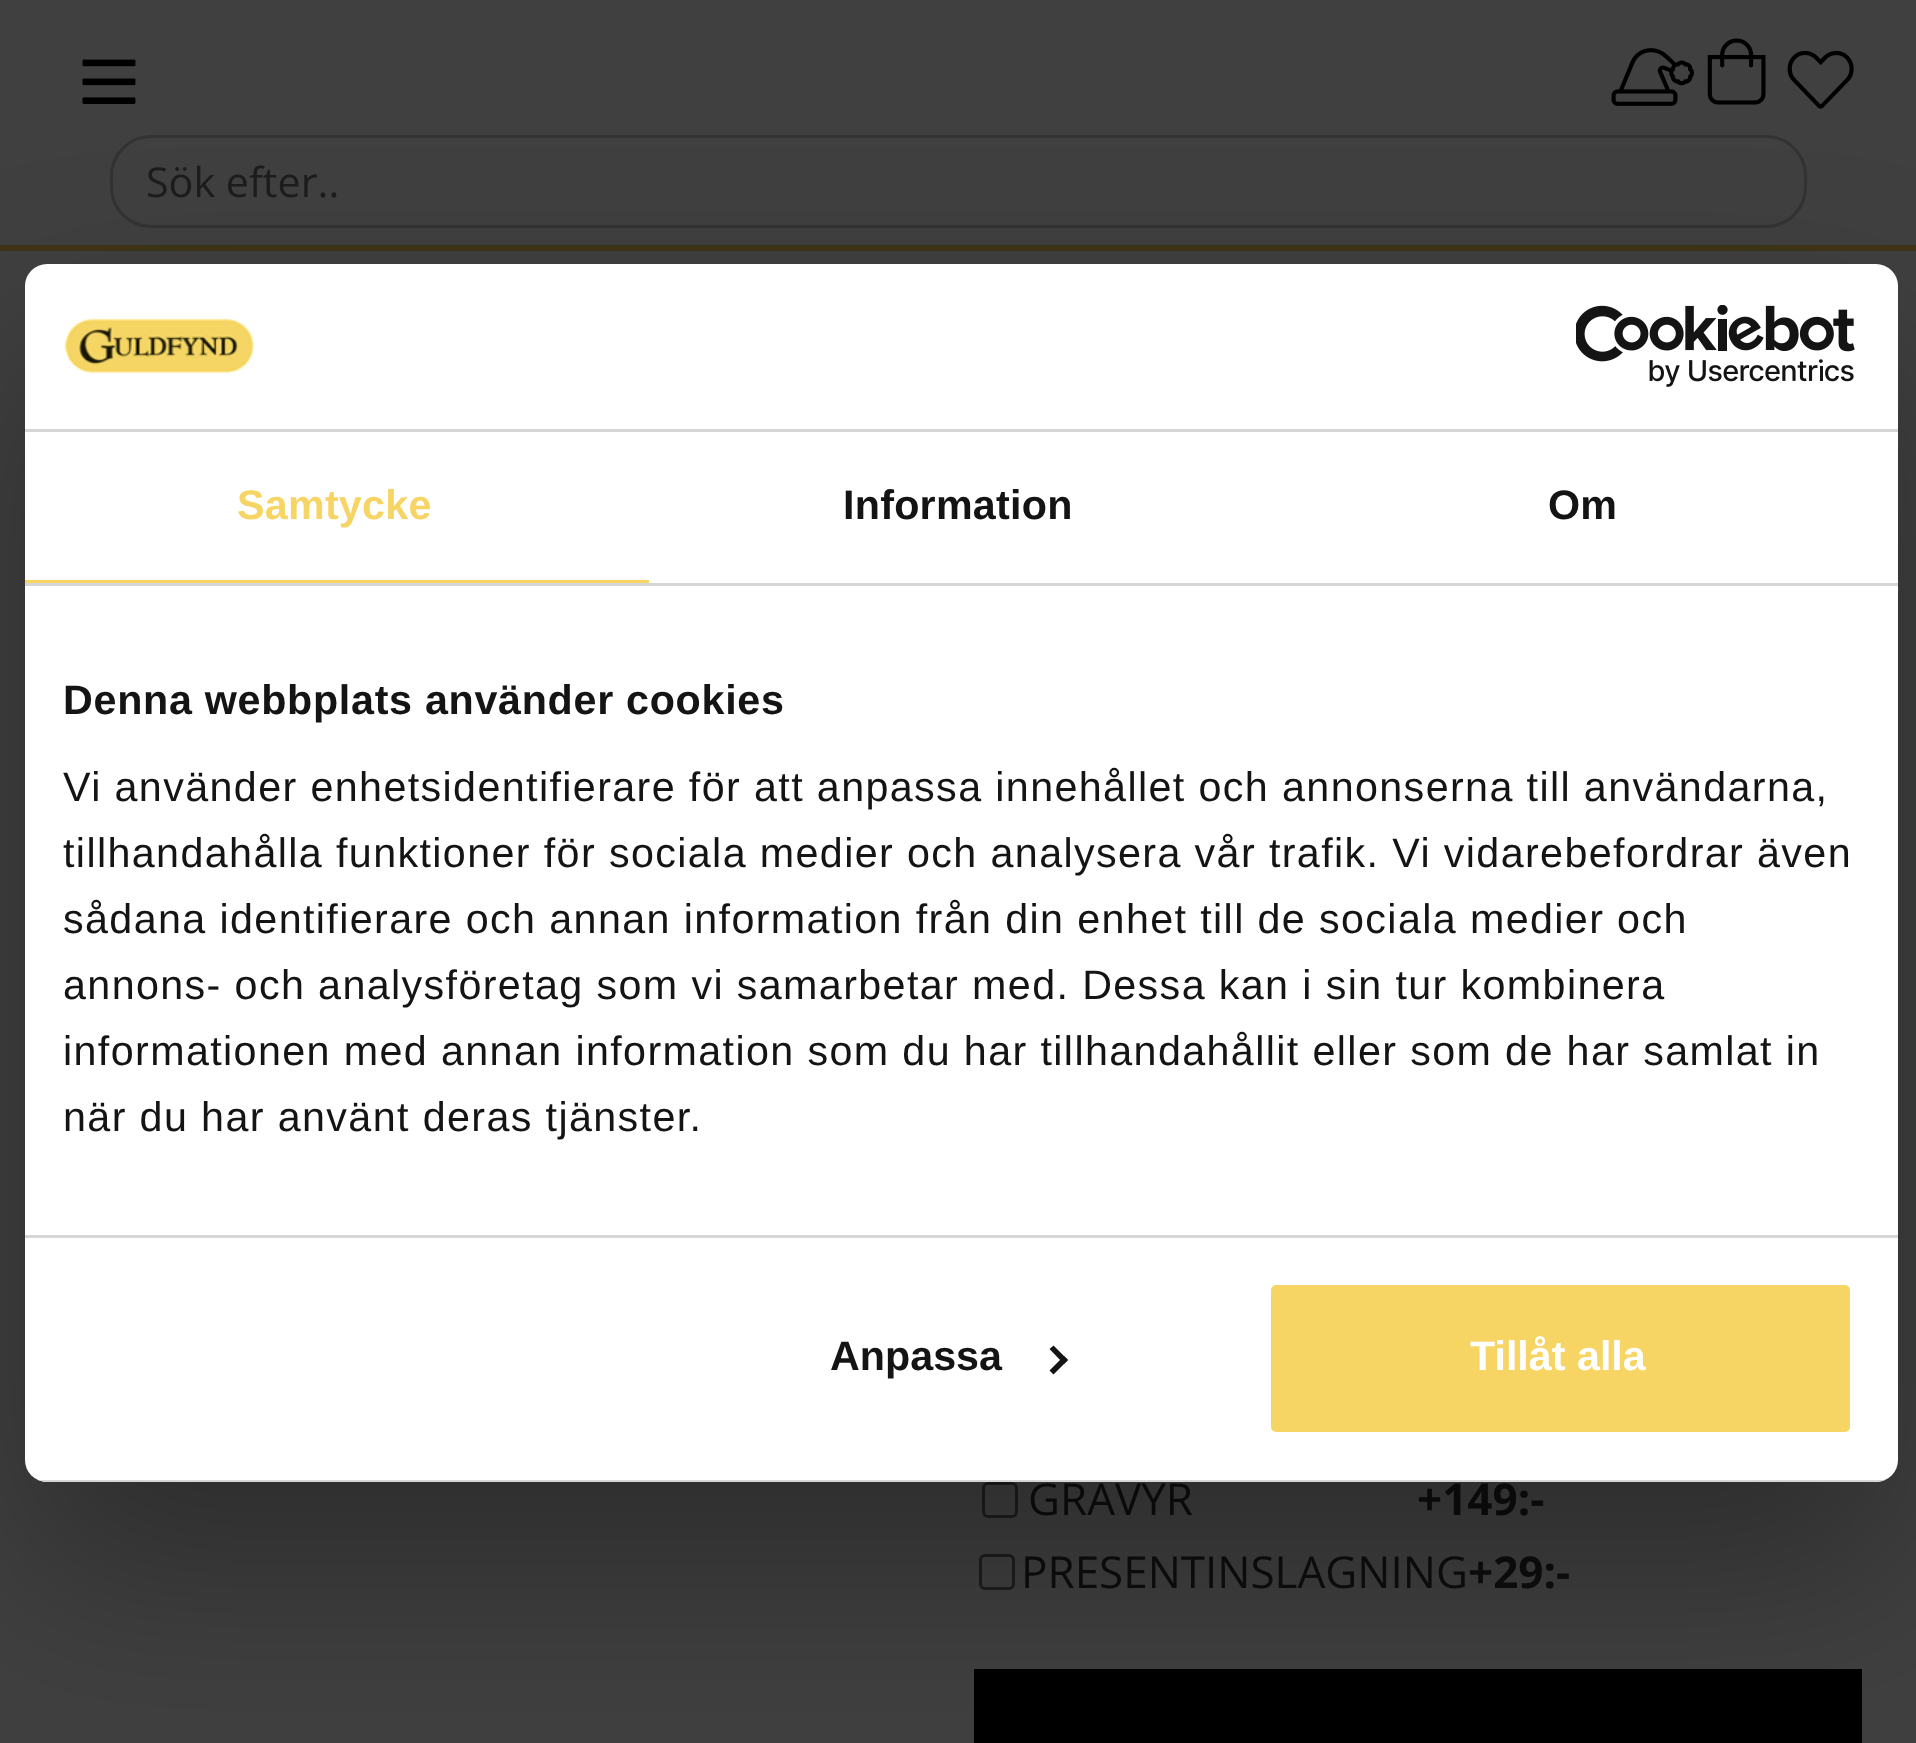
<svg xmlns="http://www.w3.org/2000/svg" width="1916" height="1743">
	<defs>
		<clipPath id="clip1"><path d="M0 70H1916V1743H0ZM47 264H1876C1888 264 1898 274 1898 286V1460C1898 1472 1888 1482 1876 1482H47C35 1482 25 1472 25 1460V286C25 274 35 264 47 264Z" clip-rule="evenodd" /></clipPath>
		<clipPath id="clip2"><rect x="25" y="264" width="1873" height="1218" rx="22" /></clipPath>
	</defs>
	<rect width="100%" height="100%" fill="#404040" />
	<image x="82" y="59" width="54" height="45" href="assets/img1.png" />
	<image x="1611" y="48" width="83" height="58" href="assets/img2.png" />
	<image x="1707" y="38" width="59" height="67" href="assets/img3.png" />
	<image x="1787" y="50" width="67" height="59" href="assets/img4.png" />
	<rect x="111.5" y="136.5" width="1694" height="90" rx="39.5" fill="none" stroke="#333333" stroke-width="3" />
	<text x="146" y="197" font-family="Open Sans" font-size="41.25" fill="#1D1D1D">Sök efter..</text>
	<rect x="0" y="245" width="1916" height="6" fill="#3E3519" />
	<rect x="983.5" y="1483.5" width="33" height="33" rx="4.5" fill="none" stroke="#1E1E1E" stroke-width="3" />
	<text x="1028" y="1515" font-family="Open Sans" font-size="44" fill="#0E0E0E">GRAVYR</text>
	<text x="1417" y="1515" font-family="Open Sans" font-size="44" font-weight="700" fill="#0E0E0E">+149:-</text>
	<rect x="980.5" y="1555.5" width="33" height="33" rx="4.5" fill="none" stroke="#1E1E1E" stroke-width="3" />
	<text x="1021" y="1588" font-family="Open Sans" font-size="44" fill="#0E0E0E">PRESENTINSLAGNING</text>
	<text x="1468" y="1588" font-family="Open Sans" font-size="44" font-weight="700" fill="#0E0E0E">+29:-</text>
	<rect x="974" y="1669" width="888" height="74" fill="#000000" />
	<g clip-path="url(#clip1)">
		<rect x="25" y="352" width="1873" height="1218" rx="22" fill="#000000" fill-opacity="0.3" filter="blur(93.5px)" />
	</g>
	<rect x="25" y="264" width="1873" height="1218" rx="22" fill="#FFFFFF" />
	<rect x="25" y="429" width="1873" height="3" fill="#D6D6D6" />
	<image x="64" y="318" width="191" height="56" href="assets/img5.png" />
	<image x="1576" y="305" width="279" height="82" href="assets/img6.png" />
	<rect x="25" y="583" width="1873" height="3" fill="#D6D6D6" />
	<rect x="25" y="580" width="624" height="3" fill="#F7D564" />
	<text x="237" y="519" font-family="Liberation Sans" font-size="41.25" font-weight="700" letter-spacing="0.25" fill="#F7D564">Samtycke</text>
	<g font-family="Liberation Sans" font-size="41.25" font-weight="700" letter-spacing="0.25" fill="#141414">
		<text x="843" y="519">Information</text>
		<text x="1548" y="519">Om</text>
	</g>
	<rect x="25" y="1235" width="1873" height="3" fill="#D6D6D6" />
	<text x="63" y="714" font-family="Liberation Sans" font-size="41.25" font-weight="700" letter-spacing="0.7" fill="#141414">Denna webbplats använder cookies</text>
	<g font-family="Liberation Sans" font-size="41.25" letter-spacing="1.38" fill="#141414">
		<text x="63" y="801">Vi använder enhetsidentifierare för att anpassa innehållet och annonserna till användarna,</text>
		<text x="63" y="867">tillhandahålla funktioner för sociala medier och analysera vår trafik. Vi vidarebefordrar även</text>
		<text x="63" y="933">sådana identifierare och annan information från din enhet till de sociala medier och</text>
		<text x="63" y="999">annons- och analysföretag som vi samarbetar med. Dessa kan i sin tur kombinera</text>
		<text x="63" y="1065">informationen med annan information som du har tillhandahållit eller som de har samlat in</text>
		<text x="63" y="1131">när du har använt deras tjänster.</text>
	</g>
	<g clip-path="url(#clip2)">
		<rect x="38" y="1480" width="1847" height="2" fill="#D6D6D6" />
	</g>
	<text x="830" y="1370" font-family="Liberation Sans" font-size="41.25" font-weight="700" fill="#141414">Anpassa</text>
	<path d="M1053.5 1345.5L1068 1360L1064 1364L1049.5 1349Z" fill="#141414" />
	<path d="M1064 1356L1068 1360L1053.5 1374.5L1049.5 1370.5Z" fill="#141414" />
	<rect x="1268" y="1282" width="585" height="153" rx="8" fill="#F7D564" stroke="#FFFFFF" stroke-width="6" />
	<text x="1470" y="1370" font-family="Liberation Sans" font-size="41.25" font-weight="700" fill="#FFFFFF">Tillåt alla</text>
</svg>
